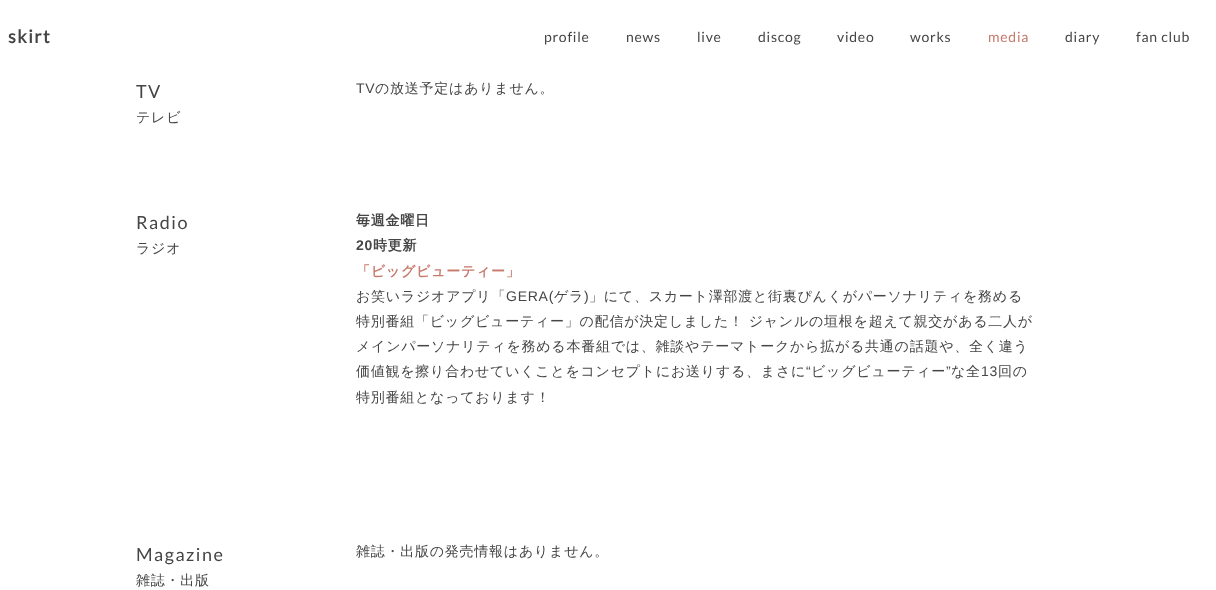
<svg xmlns="http://www.w3.org/2000/svg" width="1216" height="590">
	<rect width="100%" height="100%" fill="#FFFFFF" />
	<text x="8" y="43" font-family="Lato" font-size="18" font-weight="700" letter-spacing="1.5" fill="#454545">skirt</text>
	<g font-family="Lato" font-size="14" letter-spacing="0.75" fill="#454545">
		<text x="544" y="42">profile</text>
		<text x="626" y="42">news</text>
		<text x="697" y="42">live</text>
		<text x="758" y="42">discog</text>
		<text x="837" y="42">video</text>
		<text x="910" y="42">works</text>
	</g>
	<text x="988" y="42" font-family="Lato" font-size="14" letter-spacing="0.75" fill="#C77A6C">media</text>
	<g font-family="Lato" font-size="14" letter-spacing="0.75" fill="#454545">
		<text x="1065" y="42">diary</text>
		<text x="1136" y="42">fan club</text>
	</g>
	<text x="136" y="98" font-family="Lato" font-size="18" letter-spacing="1.5" fill="#454545">TV</text>
	<text x="136" y="122" font-family="WenQuanYi Zen Hei" font-size="14" font-weight="500" letter-spacing="0.75" fill="#454545">テレビ</text>
	<text x="356" y="93" font-family="Liberation Sans" font-size="14" letter-spacing="0.75" fill="#454545">TV</text>
	<text x="375" y="93" font-family="WenQuanYi Zen Hei" font-size="14" font-weight="500" letter-spacing="0.75" fill="#454545">の放送予定はありません。</text>
	<text x="136" y="229" font-family="Lato" font-size="18" letter-spacing="1.5" fill="#454545">Radio</text>
	<text x="136" y="253" font-family="WenQuanYi Zen Hei" font-size="14" font-weight="500" letter-spacing="0.75" fill="#454545">ラジオ</text>
	<text x="356" y="225" font-family="WenQuanYi Zen Hei" font-size="14" font-weight="700" letter-spacing="0.75" fill="#454545">毎週金曜日</text>
	<text x="356" y="250" font-family="Liberation Sans" font-size="14" font-weight="700" letter-spacing="0.75" fill="#454545">20</text>
	<text x="373" y="250" font-family="WenQuanYi Zen Hei" font-size="14" font-weight="700" letter-spacing="0.75" fill="#454545">時更新</text>
	<text x="356" y="276" font-family="WenQuanYi Zen Hei" font-size="14" font-weight="700" letter-spacing="0.75" fill="#C77A6C">「ビッグビューティー」</text>
	<text x="356" y="301" font-family="WenQuanYi Zen Hei" font-size="14" font-weight="500" letter-spacing="0.75" fill="#454545">お笑いラジオアプリ「</text>
	<text x="506" y="301" font-family="Liberation Sans" font-size="14" letter-spacing="0.75" fill="#454545">GERA(</text>
	<text x="554" y="301" font-family="WenQuanYi Zen Hei" font-size="14" font-weight="500" letter-spacing="0.75" fill="#454545">ゲラ</text>
	<text x="584" y="301" font-family="Liberation Sans" font-size="14" letter-spacing="0.75" fill="#454545">)</text>
	<g font-family="WenQuanYi Zen Hei" font-size="14" font-weight="500" letter-spacing="0.75" fill="#454545">
		<text x="589" y="301">」にて、スカート澤部渡と街裏ぴんくがパーソナリティを務める</text>
		<text x="356" y="326">特別番組「ビッグビューティー」の配信が決定しました！ ジャンルの垣根を超えて親交がある二人が</text>
		<text x="356" y="351">メインパーソナリティを務める本番組では、雑談やテーマトークから拡がる共通の話題や、全く違う</text>
		<text x="356" y="376">価値観を擦り合わせていくことをコンセプトにお送りする、まさに</text>
	</g>
	<text x="806" y="376" font-family="Liberation Sans" font-size="14" letter-spacing="0.75" fill="#454545">“</text>
	<text x="811" y="376" font-family="WenQuanYi Zen Hei" font-size="14" font-weight="500" letter-spacing="0.75" fill="#454545">ビッグビューティー</text>
	<text x="946" y="376" font-family="Liberation Sans" font-size="14" letter-spacing="0.75" fill="#454545">”</text>
	<text x="951" y="376" font-family="WenQuanYi Zen Hei" font-size="14" font-weight="500" letter-spacing="0.75" fill="#454545">な全</text>
	<text x="981" y="376" font-family="Liberation Sans" font-size="14" letter-spacing="0.75" fill="#454545">13</text>
	<g font-family="WenQuanYi Zen Hei" font-size="14" font-weight="500" letter-spacing="0.75" fill="#454545">
		<text x="998" y="376">回の</text>
		<text x="356" y="402">特別番組となっております！</text>
	</g>
	<text x="136" y="561" font-family="Lato" font-size="18" letter-spacing="1.5" fill="#454545">Magazine</text>
	<g font-family="WenQuanYi Zen Hei" font-size="14" font-weight="500" letter-spacing="0.75" fill="#454545">
		<text x="136" y="585">雑誌・出版</text>
		<text x="356" y="556">雑誌・出版の発売情報はありません。</text>
	</g>
</svg>
